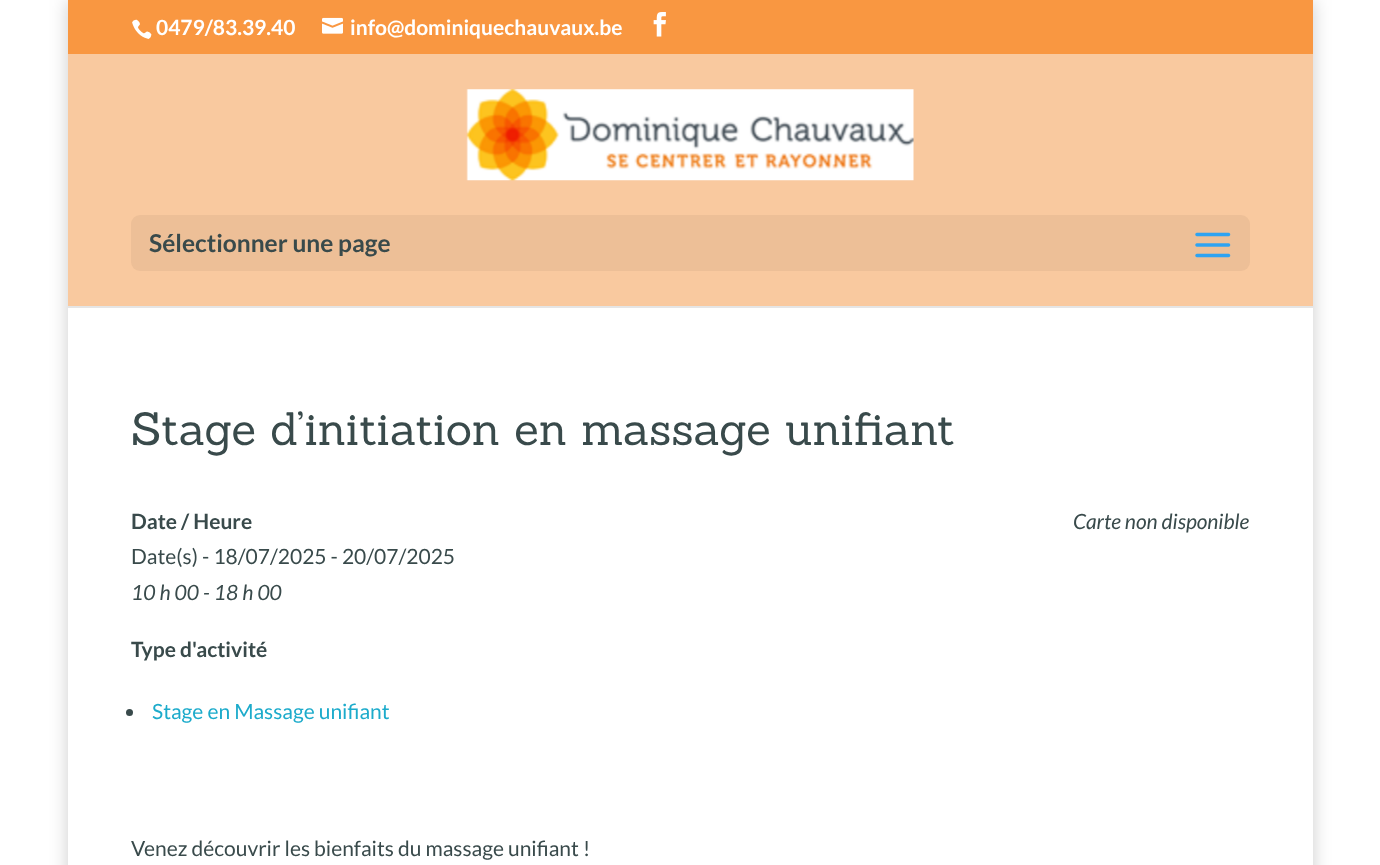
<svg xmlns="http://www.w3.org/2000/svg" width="1380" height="865">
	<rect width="100%" height="100%" fill="#FFFFFF" />
	<rect x="68" y="0" width="1245" height="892" fill="#000000" fill-opacity="0.2" filter="blur(9px)" />
	<rect x="68" y="0" width="1245" height="54" fill="#F99741" />
	<image x="132" y="19" width="20" height="20" href="assets/img1.png" />
	<text x="156" y="35" font-family="Lato" font-size="21" font-weight="700" fill="#FFFFFF">0479/83.39.40</text>
	<image x="322" y="17" width="21" height="17" href="assets/img2.png" />
	<text x="350" y="35" font-family="Lato" font-size="21" font-weight="700" fill="#FFFFFF">info@dominiquechauvaux.be</text>
	<image x="653" y="12" width="13" height="25" href="assets/img3.png" />
	<rect x="68" y="306" width="1245" height="559" fill="#FFFFFF" />
	<path d="M68 56V308H1313V56H1312V306H68Z" fill="#000000" fill-opacity="0.1" />
	<rect x="68" y="54" width="1245" height="252" fill="#F9C99F" />
	<image x="466" y="89" width="448" height="92" href="assets/img4.png" />
	<rect x="131" y="215" width="1119" height="56" rx="9" fill="#EDBF97" />
	<text x="149" y="252" font-family="Lato" font-size="24.5" font-weight="700" fill="#394A4B">Sélectionner une page</text>
	<image x="1195" y="232" width="36" height="26" href="assets/img5.png" />
	<text x="131" y="445" font-family="Sanchez" font-size="45.5" fill="#394A4B">Stage d’initiation en massage unifiant</text>
	<text x="131" y="529" font-family="Lato" font-size="21" font-weight="700" fill="#394A4B">Date / Heure</text>
	<text x="131" y="564" font-family="Lato" font-size="21" fill="#394A4B">Date(s) - 18/07/2025 - 20/07/2025</text>
	<g font-family="Lato" font-size="21" font-style="italic" fill="#394A4B">
		<text x="131" y="600">10 h 00 - 18 h 00</text>
		<text x="1073" y="529">Carte non disponible</text>
	</g>
	<text x="131" y="657" font-family="Lato" font-size="21" font-weight="700" fill="#394A4B">Type d'activité</text>
	<circle cx="129.5" cy="712.5" r="3.5" fill="#394A4B" />
	<text x="152" y="719" font-family="Lato" font-size="21" fill="#1CABCB">Stage en Massage unifiant</text>
	<text x="131" y="856" font-family="Lato" font-size="21" fill="#394A4B">Venez découvrir les bienfaits du massage unifiant !</text>
</svg>
